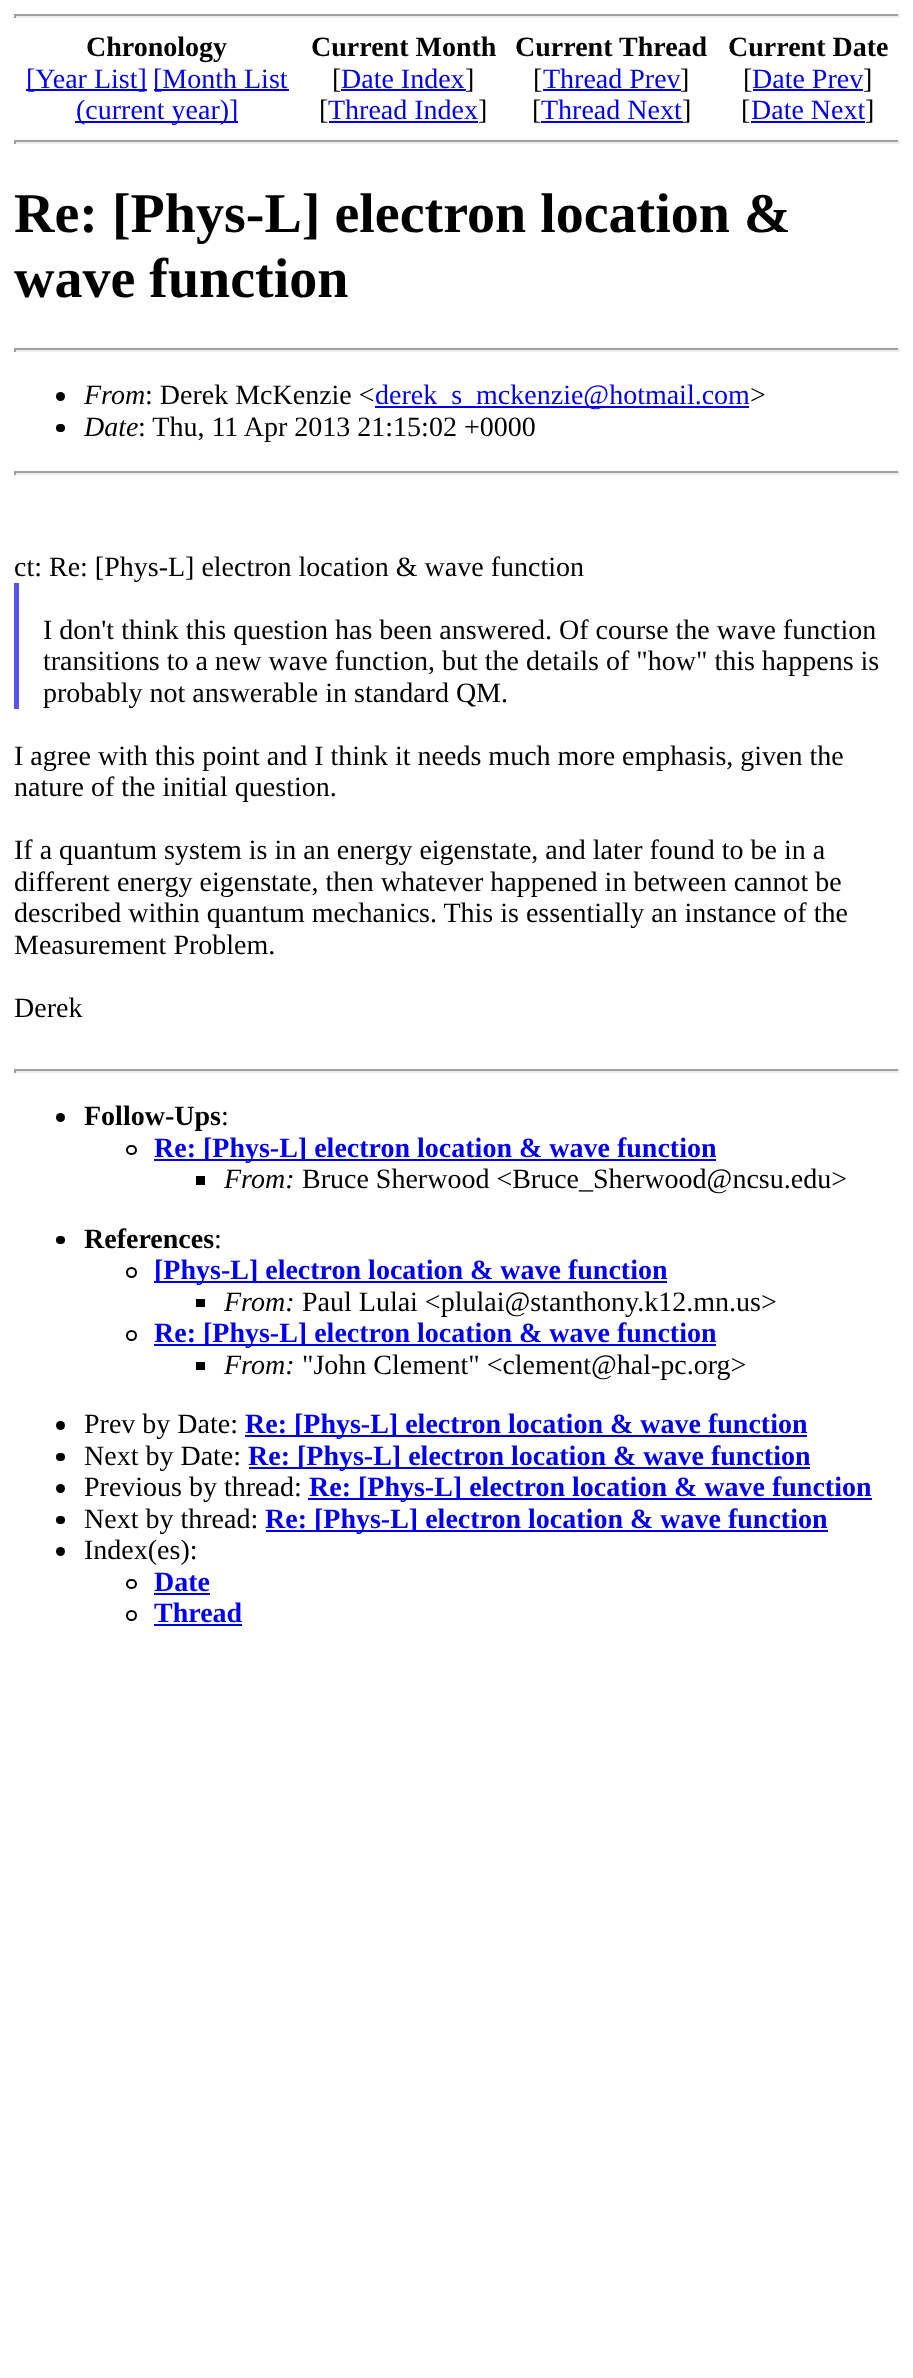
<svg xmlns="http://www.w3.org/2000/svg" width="913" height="2378">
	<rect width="100%" height="100%" fill="#FFFFFF" />
	<rect x="14" y="14" width="886" height="2" fill="#9F9F9F" />
	<rect x="898" y="14" width="2" height="4" fill="#EEEEEE" />
	<rect x="14" y="16" width="886" height="2" fill="#EEEEEE" />
	<rect x="14" y="14" width="2" height="4" fill="#9F9F9F" />
	<g font-family="Liberation Serif" font-size="28" font-weight="700" fill="#000000">
		<text x="86" y="56">Chronology</text>
		<text x="311" y="56">Current Month</text>
		<text x="515" y="56">Current Thread</text>
		<text x="728" y="56">Current Date</text>
	</g>
	<rect x="26" y="89" width="121" height="2" fill="#0000EE" />
	<text x="26" y="88" font-family="Liberation Serif" font-size="28" fill="#0000EE">[Year List]</text>
	<rect x="154" y="89" width="135" height="2" fill="#0000EE" />
	<text x="153" y="88" font-family="Liberation Serif" font-size="28" fill="#0000EE">[Month List</text>
	<rect x="75" y="121" width="163" height="2" fill="#0000EE" />
	<text x="76" y="119" font-family="Liberation Serif" font-size="28" fill="#0000EE">(current year)]</text>
	<text x="332" y="88" font-family="Liberation Serif" font-size="28" fill="#000000">[</text>
	<text x="341" y="88" font-family="Liberation Serif" font-size="28" fill="#0000EE">Date Index</text>
	<rect x="341" y="89" width="125" height="2" fill="#0000EE" />
	<g font-family="Liberation Serif" font-size="28" fill="#000000">
		<text x="465" y="88">]</text>
		<text x="319" y="119">[</text>
	</g>
	<text x="328" y="119" font-family="Liberation Serif" font-size="28" fill="#0000EE">Thread Index</text>
	<rect x="329" y="121" width="149" height="2" fill="#0000EE" />
	<g font-family="Liberation Serif" font-size="28" fill="#000000">
		<text x="478" y="119">]</text>
		<text x="533" y="88">[</text>
	</g>
	<text x="543" y="88" font-family="Liberation Serif" font-size="28" fill="#0000EE">Thread Prev</text>
	<rect x="543" y="89" width="138" height="2" fill="#0000EE" />
	<g font-family="Liberation Serif" font-size="28" fill="#000000">
		<text x="680" y="88">]</text>
		<text x="532" y="119">[</text>
	</g>
	<text x="541" y="119" font-family="Liberation Serif" font-size="28" fill="#0000EE">Thread Next</text>
	<rect x="541" y="121" width="142" height="2" fill="#0000EE" />
	<g font-family="Liberation Serif" font-size="28" fill="#000000">
		<text x="682" y="119">]</text>
		<text x="743" y="88">[</text>
	</g>
	<text x="752" y="88" font-family="Liberation Serif" font-size="28" fill="#0000EE">Date Prev</text>
	<rect x="753" y="89" width="110" height="2" fill="#0000EE" />
	<g font-family="Liberation Serif" font-size="28" fill="#000000">
		<text x="863" y="88">]</text>
		<text x="741" y="119">[</text>
	</g>
	<text x="751" y="119" font-family="Liberation Serif" font-size="28" fill="#0000EE">Date Next</text>
	<rect x="751" y="121" width="114" height="2" fill="#0000EE" />
	<text x="865" y="119" font-family="Liberation Serif" font-size="28" fill="#000000">]</text>
	<rect x="14" y="140" width="886" height="2" fill="#9F9F9F" />
	<rect x="898" y="140" width="2" height="4" fill="#EEEEEE" />
	<rect x="14" y="142" width="886" height="2" fill="#EEEEEE" />
	<rect x="14" y="140" width="2" height="4" fill="#9F9F9F" />
	<g font-family="Liberation Serif" font-size="56" font-weight="700" fill="#000000">
		<text x="14" y="232">Re: [Phys-L] electron location &amp;</text>
		<text x="14" y="297">wave function</text>
	</g>
	<rect x="14" y="348" width="886" height="2" fill="#9F9F9F" />
	<rect x="898" y="348" width="2" height="4" fill="#EEEEEE" />
	<rect x="14" y="350" width="886" height="2" fill="#EEEEEE" />
	<rect x="14" y="348" width="2" height="4" fill="#9F9F9F" />
	<circle cx="60.5" cy="396.5" r="4.5" fill="#000000" />
	<text x="84" y="404" font-family="Liberation Serif" font-size="28" font-style="italic" fill="#000000">From</text>
	<text x="145" y="404" font-family="Liberation Serif" font-size="28" fill="#000000">: Derek McKenzie &lt;</text>
	<rect x="375" y="406" width="374" height="2" fill="#0000EE" />
	<text x="375" y="404" font-family="Liberation Serif" font-size="28" fill="#0000EE">derek_s_mckenzie@hotmail.com</text>
	<text x="750" y="404" font-family="Liberation Serif" font-size="28" fill="#000000">&gt;</text>
	<rect x="56" y="424" width="9" height="8" rx="4" fill="#000000" />
	<text x="84" y="436" font-family="Liberation Serif" font-size="28" font-style="italic" fill="#000000">Date</text>
	<text x="138" y="436" font-family="Liberation Serif" font-size="28" fill="#000000">: Thu, 11 Apr 2013 21:15:02 +0000</text>
	<rect x="14" y="471" width="886" height="2" fill="#9F9F9F" />
	<rect x="898" y="471" width="2" height="4" fill="#EEEEEE" />
	<rect x="14" y="473" width="886" height="2" fill="#EEEEEE" />
	<rect x="14" y="471" width="2" height="4" fill="#9F9F9F" />
	<text x="14" y="576" font-family="Liberation Serif" font-size="28" fill="#000000">ct: Re: [Phys-L] electron location &amp; wave function</text>
	<rect x="14" y="583" width="5" height="126" fill="#5555EE" />
	<g font-family="Liberation Serif" font-size="28" fill="#000000">
		<text x="43" y="639">I don't think this question has been answered. Of course the wave function</text>
		<text x="43" y="670">transitions to a new wave function, but the details of "how" this happens is</text>
		<text x="43" y="702">probably not answerable in standard QM.</text>
		<text x="14" y="765">I agree with this point and I think it needs much more emphasis, given the</text>
		<text x="14" y="796">nature of the initial question.</text>
		<text x="14" y="859">If a quantum system is in an energy eigenstate, and later found to be in a</text>
		<text x="14" y="891">different energy eigenstate, then whatever happened in between cannot be</text>
		<text x="14" y="922">described within quantum mechanics. This is essentially an instance of the</text>
		<text x="14" y="954">Measurement Problem.</text>
		<text x="14" y="1017">Derek</text>
	</g>
	<rect x="14" y="1069" width="886" height="2" fill="#9F9F9F" />
	<rect x="898" y="1069" width="2" height="4" fill="#EEEEEE" />
	<rect x="14" y="1071" width="886" height="2" fill="#EEEEEE" />
	<rect x="14" y="1069" width="2" height="4" fill="#9F9F9F" />
	<circle cx="60.5" cy="1117.5" r="4.5" fill="#000000" />
	<text x="84" y="1125" font-family="Liberation Serif" font-size="28" font-weight="700" fill="#000000">Follow-Ups</text>
	<text x="221" y="1125" font-family="Liberation Serif" font-size="28" fill="#000000">:</text>
	<rect x="127" y="1146" width="9" height="8" rx="4" fill="none" stroke="#000000" stroke-width="2" />
	<rect x="154" y="1159" width="562" height="2" fill="#0000EE" />
	<text x="154" y="1157" font-family="Liberation Serif" font-size="28" font-weight="700" fill="#0000EE">Re: [Phys-L] electron location &amp; wave function</text>
	<rect x="196" y="1176" width="9" height="9" fill="#000000" />
	<text x="224" y="1188" font-family="Liberation Serif" font-size="28" font-style="italic" fill="#000000">From:</text>
	<text x="302" y="1188" font-family="Liberation Serif" font-size="28" fill="#000000">Bruce Sherwood &lt;Bruce_Sherwood@ncsu.edu&gt;</text>
	<rect x="56" y="1236" width="9" height="8" rx="4" fill="#000000" />
	<text x="84" y="1248" font-family="Liberation Serif" font-size="28" font-weight="700" fill="#000000">References</text>
	<text x="214" y="1248" font-family="Liberation Serif" font-size="28" fill="#000000">:</text>
	<circle cx="131.5" cy="1272.5" r="4.5" fill="none" stroke="#000000" stroke-width="2" />
	<rect x="154" y="1281" width="513" height="2" fill="#0000EE" />
	<text x="154" y="1279" font-family="Liberation Serif" font-size="28" font-weight="700" fill="#0000EE">[Phys-L] electron location &amp; wave function</text>
	<rect x="196" y="1299" width="9" height="8" fill="#000000" />
	<text x="224" y="1311" font-family="Liberation Serif" font-size="28" font-style="italic" fill="#000000">From:</text>
	<text x="302" y="1311" font-family="Liberation Serif" font-size="28" fill="#000000">Paul Lulai &lt;plulai@stanthony.k12.mn.us&gt;</text>
	<circle cx="131.5" cy="1335.5" r="4.5" fill="none" stroke="#000000" stroke-width="2" />
	<rect x="154" y="1344" width="562" height="2" fill="#0000EE" />
	<text x="154" y="1342" font-family="Liberation Serif" font-size="28" font-weight="700" fill="#0000EE">Re: [Phys-L] electron location &amp; wave function</text>
	<rect x="196" y="1362" width="9" height="8" fill="#000000" />
	<text x="224" y="1374" font-family="Liberation Serif" font-size="28" font-style="italic" fill="#000000">From:</text>
	<text x="302" y="1374" font-family="Liberation Serif" font-size="28" fill="#000000">"John Clement" &lt;clement@hal-pc.org&gt;</text>
	<circle cx="60.5" cy="1425.5" r="4.5" fill="#000000" />
	<text x="84" y="1433" font-family="Liberation Serif" font-size="28" fill="#000000">Prev by Date:</text>
	<rect x="245" y="1435" width="562" height="2" fill="#0000EE" />
	<text x="245" y="1433" font-family="Liberation Serif" font-size="28" font-weight="700" fill="#0000EE">Re: [Phys-L] electron location &amp; wave function</text>
	<rect x="56" y="1453" width="9" height="8" rx="4" fill="#000000" />
	<text x="84" y="1465" font-family="Liberation Serif" font-size="28" fill="#000000">Next by Date:</text>
	<rect x="249" y="1467" width="561" height="2" fill="#0000EE" />
	<text x="248" y="1465" font-family="Liberation Serif" font-size="28" font-weight="700" fill="#0000EE">Re: [Phys-L] electron location &amp; wave function</text>
	<circle cx="60.5" cy="1488.5" r="4.5" fill="#000000" />
	<text x="84" y="1496" font-family="Liberation Serif" font-size="28" fill="#000000">Previous by thread:</text>
	<rect x="308" y="1498" width="564" height="2" fill="#0000EE" />
	<text x="309" y="1496" font-family="Liberation Serif" font-size="28" font-weight="700" fill="#0000EE">Re: [Phys-L] electron location &amp; wave function</text>
	<rect x="56" y="1516" width="9" height="8" rx="4" fill="#000000" />
	<text x="84" y="1528" font-family="Liberation Serif" font-size="28" fill="#000000">Next by thread:</text>
	<rect x="266" y="1530" width="562" height="2" fill="#0000EE" />
	<text x="265" y="1528" font-family="Liberation Serif" font-size="28" font-weight="700" fill="#0000EE">Re: [Phys-L] electron location &amp; wave function</text>
	<circle cx="60.5" cy="1551.5" r="4.5" fill="#000000" />
	<text x="84" y="1559" font-family="Liberation Serif" font-size="28" fill="#000000">Index(es):</text>
	<rect x="127" y="1580" width="9" height="8" rx="4" fill="none" stroke="#000000" stroke-width="2" />
	<text x="154" y="1591" font-family="Liberation Serif" font-size="28" font-weight="700" fill="#0000EE">Date</text>
	<rect x="154" y="1593" width="56" height="2" fill="#0000EE" />
	<circle cx="131.5" cy="1615.5" r="4.5" fill="none" stroke="#000000" stroke-width="2" />
	<text x="154" y="1622" font-family="Liberation Serif" font-size="28" font-weight="700" fill="#0000EE">Thread</text>
	<rect x="154" y="1624" width="88" height="2" fill="#0000EE" />
</svg>
